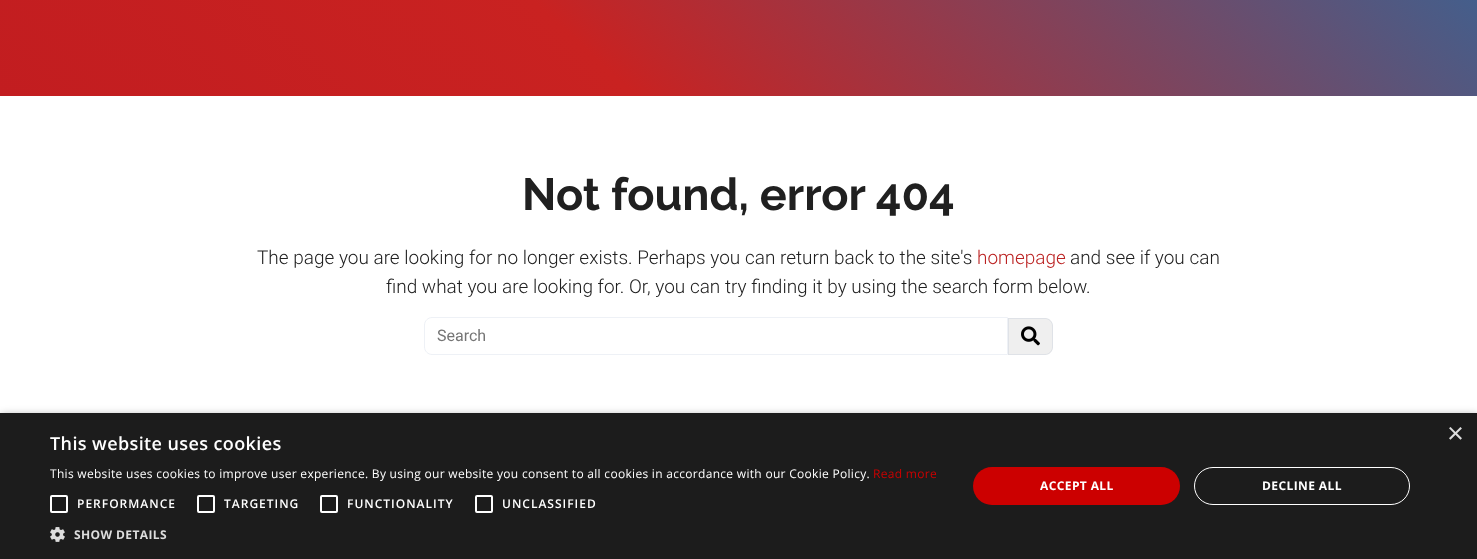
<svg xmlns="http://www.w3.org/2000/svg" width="1477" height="559">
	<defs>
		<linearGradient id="g1" gradientUnits="userSpaceOnUse" x1="339" y1="412" x2="1138" y2="-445"><stop offset="0" stop-color="#C21D20" /><stop offset="0.37" stop-color="#C92221" /><stop offset="0.99" stop-color="#336699" /><stop offset="1" stop-color="#CB1C38" /></linearGradient>
	</defs>
	<rect width="100%" height="100%" fill="#FFFFFF" />
	<rect x="0" y="0" width="1477" height="96" fill="url(#g1)" />
	<text x="522" y="210" font-family="Raleway" font-size="45" font-weight="700" fill="#202020">Not found, error 404</text>
	<text x="257" y="264" font-family="Roboto" font-size="19" font-weight="300" fill="#202020">The page you are looking for no longer exists. Perhaps you can return back to the site's</text>
	<text x="977" y="264" font-family="Roboto" font-size="19" font-weight="300" fill="#BB2121">homepage</text>
	<g font-family="Roboto" font-size="19" font-weight="300" fill="#202020">
		<text x="1070" y="264">and see if you can</text>
		<text x="386" y="293">find what you are looking for. Or, you can try finding it by using the search form below.</text>
	</g>
	<path d="M432 317.5H1007.5V354.5H432C428 354.5 424.5 351 424.5 347V325C424.5 321 428 317.5 432 317.5Z" fill="none" stroke="#EEF1F6" />
	<text x="437" y="341" font-family="Roboto" font-size="16" fill="#757575">Search</text>
	<path d="M1008 318H1045C1049.5 318 1053 321.5 1053 326V347C1053 351.5 1049.5 355 1045 355H1008Z" fill="#EFEFEF" />
	<path d="M1008.5 318.5H1045C1049 318.5 1052.5 322 1052.5 326V347C1052.5 351 1049 354.5 1045 354.5H1008.5Z" fill="none" stroke="#083C82" stroke-opacity="0.07" />
	<image x="1021" y="326" width="19" height="20" href="assets/img1.png" />
	<rect x="1" y="415" width="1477" height="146" fill="#000000" fill-opacity="0.35" filter="blur(4px)" />
	<rect x="0" y="413" width="1477" height="146" fill="#1C1C1C" />
	<text x="1447" y="443" font-family="Liberation Sans" font-size="29" fill="#DDDDDD">×</text>
	<text x="50" y="450" font-family="Open Sans" font-size="18" font-weight="600" letter-spacing="0.4" fill="#FFFFFF">This website uses cookies</text>
	<text x="50" y="478" font-family="Open Sans" font-size="12" letter-spacing="0.3" fill="#FFFFFF">This website uses cookies to improve user experience. By using our website you consent to all cookies in accordance with our Cookie Policy.</text>
	<text x="873" y="478" font-family="Open Sans" font-size="12" letter-spacing="0.3" fill="#CC0000">Read more</text>
	<rect x="51" y="496" width="16" height="16" rx="1" fill="none" stroke="#FFFFFF" stroke-width="2" />
	<text x="77" y="508" font-family="Open Sans" font-size="12" font-weight="600" letter-spacing="1" fill="#FFFFFF">PERFORMANCE</text>
	<rect x="198" y="496" width="16" height="16" rx="1" fill="none" stroke="#FFFFFF" stroke-width="2" />
	<text x="224" y="508" font-family="Open Sans" font-size="12" font-weight="600" letter-spacing="1" fill="#FFFFFF">TARGETING</text>
	<rect x="321" y="496" width="16" height="16" rx="1" fill="none" stroke="#FFFFFF" stroke-width="2" />
	<text x="347" y="508" font-family="Open Sans" font-size="12" font-weight="600" letter-spacing="1" fill="#FFFFFF">FUNCTIONALITY</text>
	<rect x="476" y="496" width="16" height="16" rx="1" fill="none" stroke="#FFFFFF" stroke-width="2" />
	<text x="502" y="508" font-family="Open Sans" font-size="12" font-weight="600" letter-spacing="1" fill="#FFFFFF">UNCLASSIFIED</text>
	<image x="50" y="527" width="15" height="15" href="assets/img2.png" />
	<text x="74" y="539" font-family="Open Sans" font-size="12" font-weight="700" letter-spacing="0.4" fill="#DDDDDD">SHOW DETAILS</text>
	<rect x="973" y="467" width="207" height="38" rx="19" fill="#CC0000" />
	<text x="1040" y="490" font-family="Open Sans" font-size="12" font-weight="700" letter-spacing="0.4" fill="#FFFFFF">ACCEPT ALL</text>
	<rect x="1194.5" y="467.5" width="215" height="37" rx="18.5" fill="none" stroke="#FFFFFF" />
	<text x="1262" y="490" font-family="Open Sans" font-size="12" font-weight="700" letter-spacing="0.4" fill="#FFFFFF">DECLINE ALL</text>
</svg>
